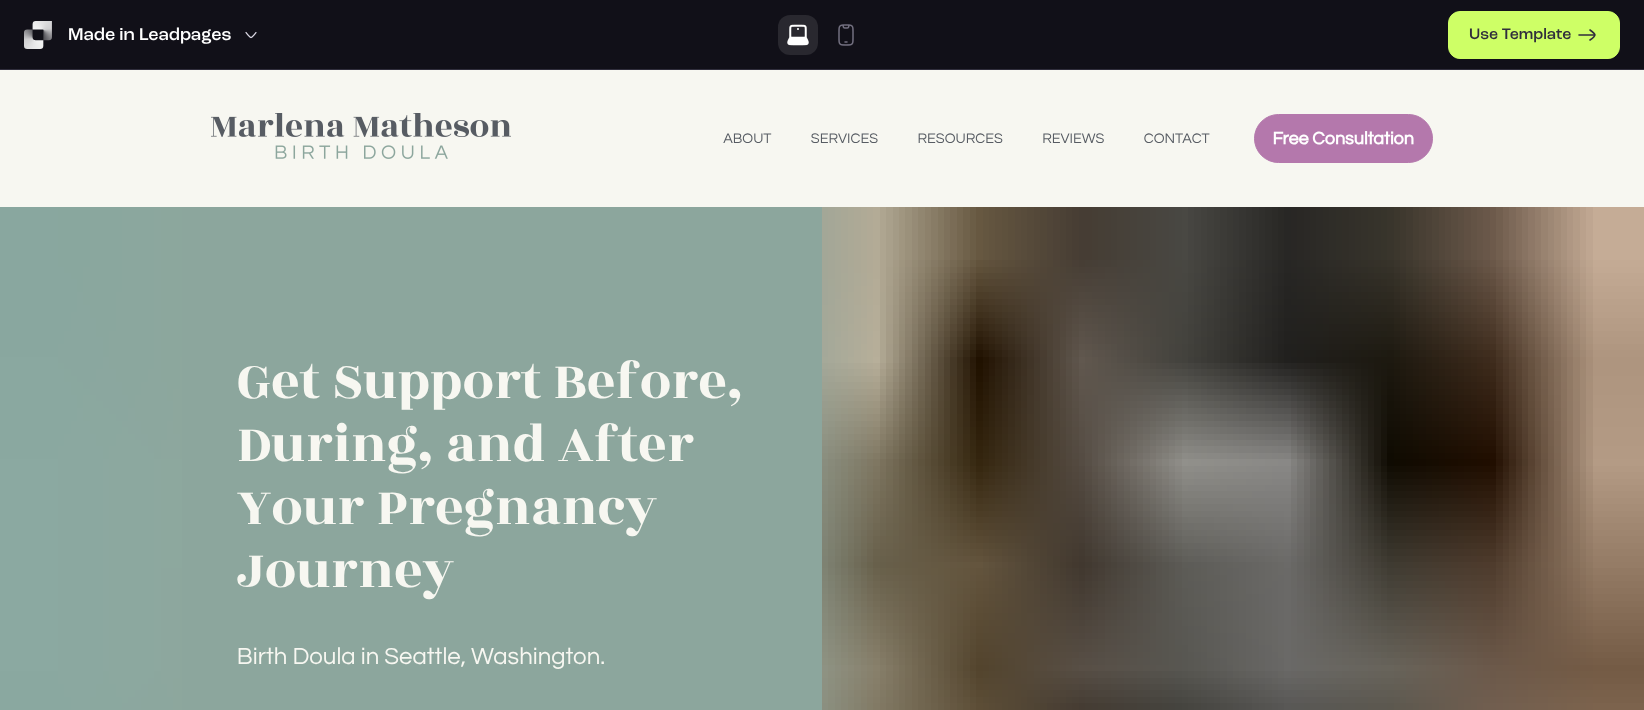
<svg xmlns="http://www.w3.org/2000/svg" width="1644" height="710">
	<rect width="100%" height="100%" fill="#111018" />
	<rect x="0" y="69" width="1644" height="1" fill="#302E3C" />
	<image x="24" y="21" width="28" height="28" href="assets/img1.png" />
	<text x="68" y="40" font-family="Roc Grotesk" font-size="18" font-weight="500" fill="#FFFFFF">Made in Leadpages</text>
	<image x="245" y="31" width="12" height="8" href="assets/img2.png" />
	<rect x="778" y="15" width="40" height="40" rx="12" fill="#29282F" />
	<image x="787" y="24" width="22" height="22" href="assets/img3.png" />
	<image x="838" y="24" width="16" height="22" href="assets/img4.png" />
	<rect x="1448.5" y="11.5" width="171" height="47" rx="11.5" fill="#CEFF66" stroke="#CEFF66" />
	<text x="1469" y="39" font-family="Roc Grotesk" font-size="16" font-weight="500" fill="#302E3C">Use Template</text>
	<path d="M1595 35H1579M1590 40C1596.5 35.5 1596.5 34.5 1590 30" fill="none" stroke="#302E3C" stroke-width="1.6" stroke-linecap="round" stroke-linejoin="round" />
	<image x="0" y="70" width="1644" height="640" href="assets/img5.png" />
</svg>
